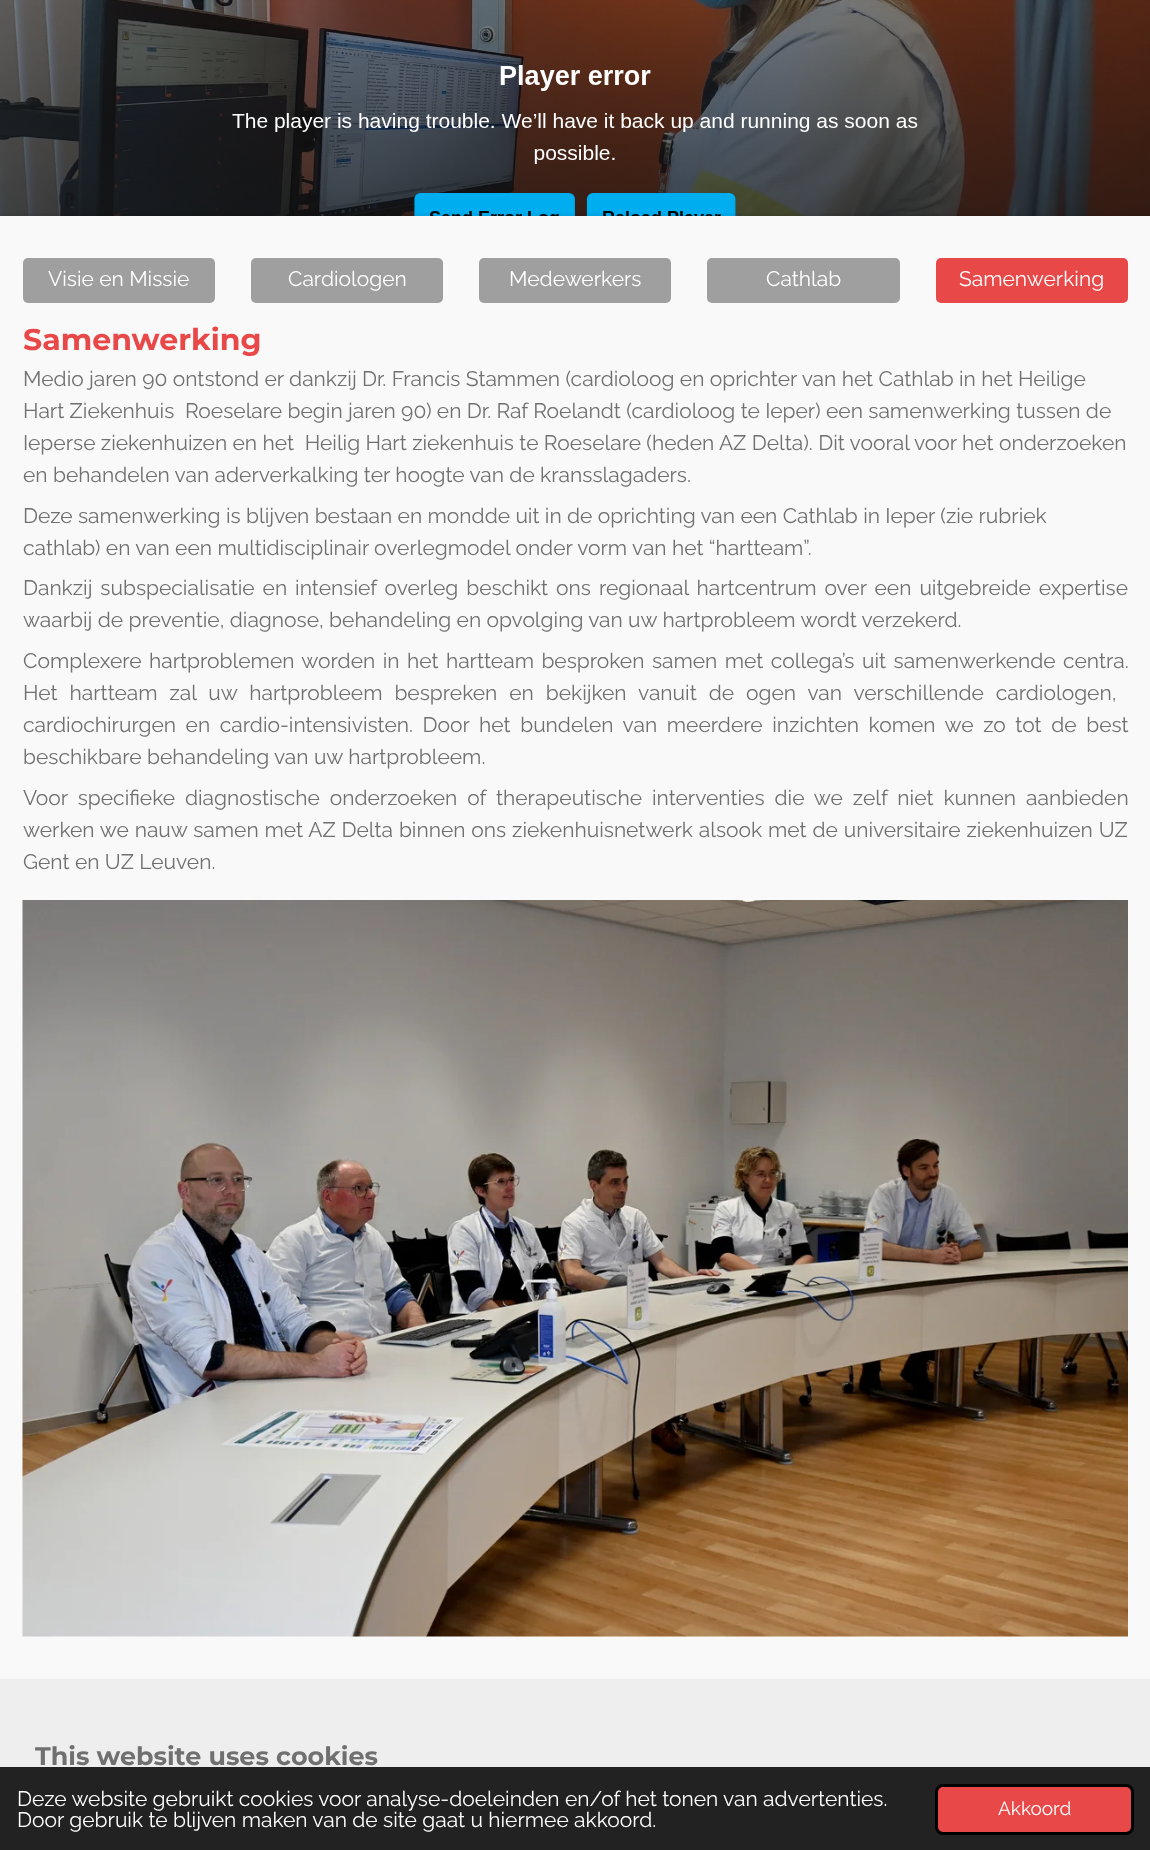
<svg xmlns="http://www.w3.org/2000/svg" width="1150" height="1850">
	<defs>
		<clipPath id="clip1"><rect x="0" y="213" width="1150" height="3" /></clipPath>
	</defs>
	<rect width="100%" height="100%" fill="#F9F9F9" />
	<image x="0" y="0" width="1150" height="216" href="assets/img1.png" />
	<image x="0" y="0" width="1150" height="216" href="assets/img2.png" />
	<g clip-path="url(#clip1)">
		<rect x="0" y="216" width="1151" height="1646" fill="#000000" fill-opacity="0.1" filter="blur(4px)" />
	</g>
	<rect x="23" y="258" width="192" height="45" rx="5" fill="#9F9F9F" />
	<text x="48" y="286" font-family="Raleway" font-size="21" fill="#FFFFFF">Visie en Missie</text>
	<rect x="251" y="258" width="192" height="45" rx="5" fill="#9F9F9F" />
	<text x="288" y="286" font-family="Raleway" font-size="21" fill="#FFFFFF">Cardiologen</text>
	<rect x="479" y="258" width="192" height="45" rx="5" fill="#9F9F9F" />
	<text x="509" y="286" font-family="Raleway" font-size="21" fill="#FFFFFF">Medewerkers</text>
	<rect x="707" y="258" width="193" height="45" rx="5" fill="#9F9F9F" />
	<text x="766" y="286" font-family="Raleway" font-size="21" fill="#FFFFFF">Cathlab</text>
	<rect x="936" y="258" width="192" height="45" rx="5" fill="#E94848" />
	<text x="959" y="286" font-family="Raleway" font-size="21" fill="#FFFFFF">Samenwerking</text>
	<text x="23" y="350" font-family="Montserrat" font-size="30" font-weight="700" fill="#E94848">Samenwerking</text>
	<g font-family="Raleway" font-size="21" fill="#707070">
		<text x="23" y="386">Medio jaren 90 ontstond er dankzij Dr. Francis Stammen (cardioloog en oprichter van het Cathlab in het Heilige</text>
		<text x="23" y="418" xml:space="preserve">Hart Ziekenhuis  Roeselare begin jaren 90) en Dr. Raf Roelandt (cardioloog te Ieper) een samenwerking tussen de</text>
		<text x="23" y="450" xml:space="preserve">Ieperse ziekenhuizen en het  Heilig Hart ziekenhuis te Roeselare (heden AZ Delta). Dit vooral voor het onderzoeken</text>
		<text x="23" y="482">en behandelen van aderverkalking ter hoogte van de kransslagaders.</text>
		<text x="23" y="523">Deze samenwerking is blijven bestaan en mondde uit in de oprichting van een Cathlab in Ieper (zie rubriek</text>
		<text x="23" y="555">cathlab) en van een multidisciplinair overlegmodel onder vorm van het “hartteam”.</text>
		<text x="23" y="595" word-spacing="2.6">Dankzij subspecialisatie en intensief overleg beschikt ons regionaal hartcentrum over een uitgebreide expertise</text>
		<text x="23" y="627">waarbij de preventie, diagnose, behandeling en opvolging van uw hartprobleem wordt verzekerd.</text>
		<text x="23" y="668" word-spacing="2.1">Complexere hartproblemen worden in het hartteam besproken samen met collega’s uit samenwerkende centra.</text>
		<text x="23" y="700" word-spacing="6.6">Het hartteam zal uw hartprobleem bespreken en bekijken vanuit de ogen van verschillende cardiologen,</text>
		<text x="23" y="732" word-spacing="4.25">cardiochirurgen en cardio-intensivisten. Door het bundelen van meerdere inzichten komen we zo tot de best</text>
		<text x="23" y="764">beschikbare behandeling van uw hartprobleem.</text>
		<text x="23" y="805" word-spacing="4.6">Voor specifieke diagnostische onderzoeken of therapeutische interventies die we zelf niet kunnen aanbieden</text>
		<text x="23" y="837" word-spacing="0.5">werken we nauw samen met AZ Delta binnen ons ziekenhuisnetwerk alsook met de universitaire ziekenhuizen UZ</text>
		<text x="23" y="869">Gent en UZ Leuven.</text>
	</g>
	<image x="22" y="900" width="1106" height="737" href="assets/img3.png" />
	<rect x="0" y="1679" width="1150" height="88" fill="#EEEEEE" />
	<text x="35" y="1765" font-family="Montserrat" font-size="25.4" font-weight="700" fill="#707070">This website uses cookies</text>
	<rect x="0" y="1767" width="1150" height="83" fill="#222222" />
	<g font-family="Raleway" font-size="21" fill="#FFFFFF">
		<text x="17" y="1806">Deze website gebruikt cookies voor analyse-doeleinden en/of het tonen van advertenties.</text>
		<text x="17" y="1827">Door gebruik te blijven maken van de site gaat u hiermee akkoord.</text>
	</g>
	<rect x="936.5" y="1785.5" width="196" height="48" rx="6.5" fill="#E94848" stroke="#000000" stroke-width="3" />
	<text x="998" y="1815" font-family="Raleway" font-size="19" fill="#FFFFFF">Akkoord</text>
</svg>
